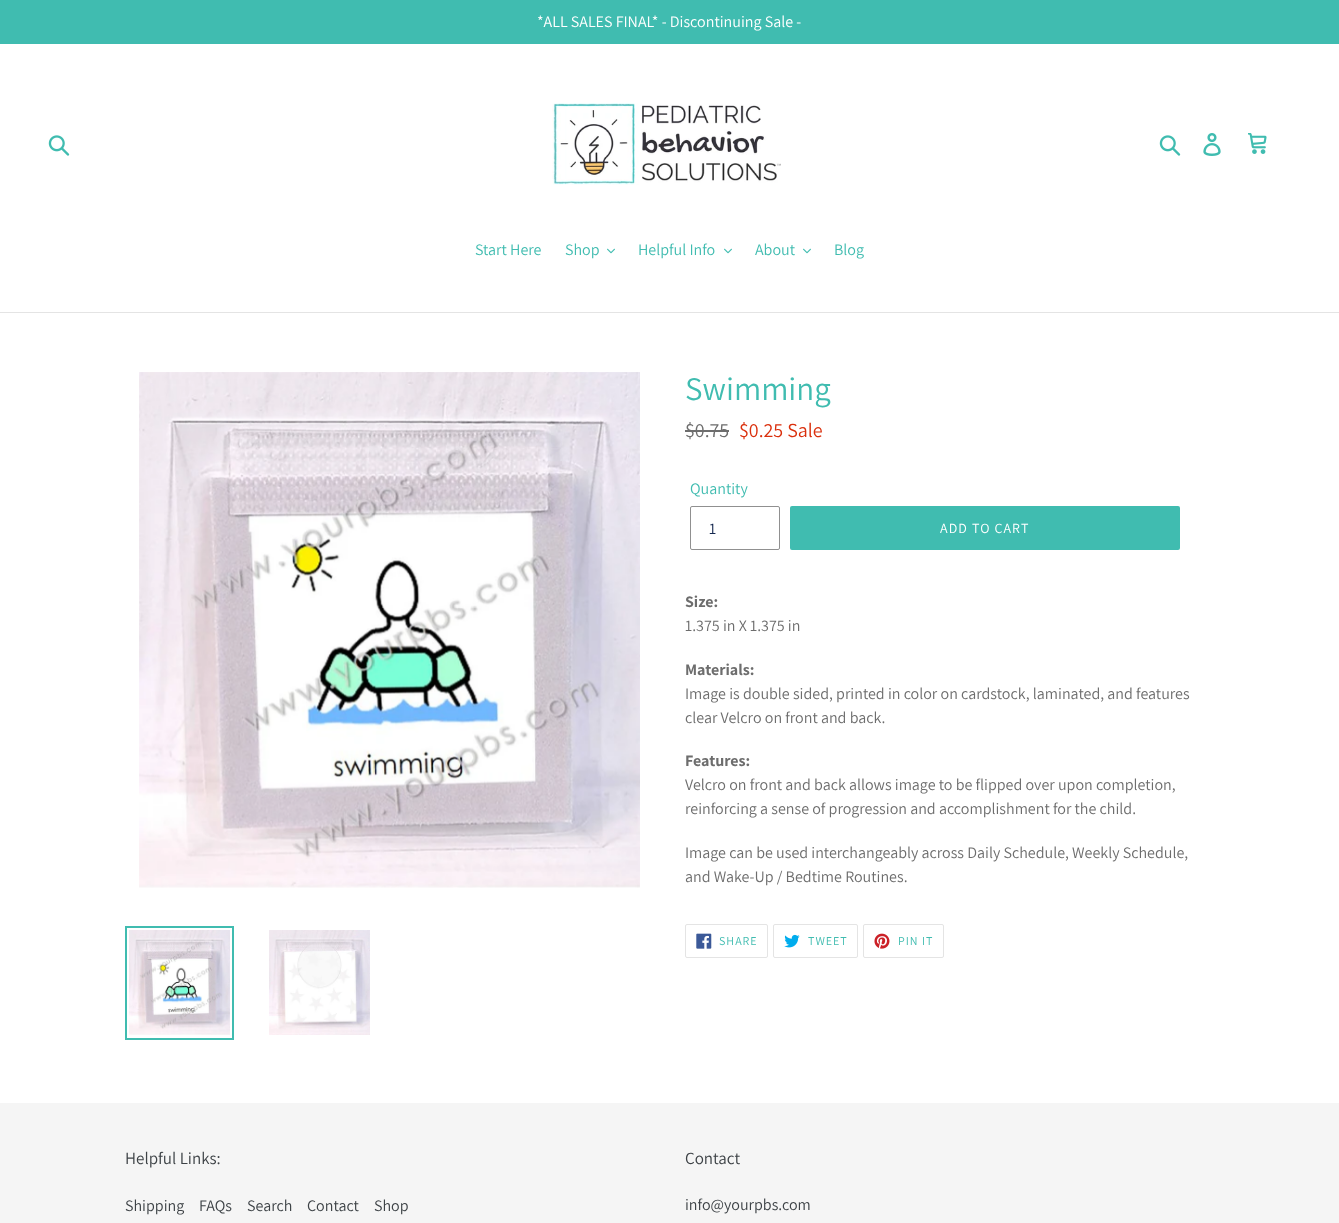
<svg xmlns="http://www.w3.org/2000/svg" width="1339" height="1223">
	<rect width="100%" height="100%" fill="#FFFFFF" />
	<rect x="0" y="0" width="1339" height="44" fill="#40BCB0" />
	<text x="537" y="27" font-family="Assistant" font-size="16" fill="#FFFFFF">*ALL SALES FINAL* - Discontinuing Sale -</text>
	<image x="48" y="135" width="22" height="21" href="assets/img1.png" />
	<image x="552" y="103" width="229" height="82" href="assets/img2.png" />
	<image x="1159" y="135" width="22" height="21" href="assets/img1.png" />
	<image x="1203" y="133" width="18" height="23" href="assets/img3.png" />
	<image x="1248" y="133" width="19" height="21" href="assets/img4.png" />
	<rect x="0" y="312" width="1339" height="1" fill="#E4E4E4" />
	<g font-family="Assistant" font-size="16" fill="#40BCB0">
		<text x="475" y="255">Start Here</text>
		<text x="565" y="255">Shop</text>
	</g>
	<image x="607" y="248" width="8" height="6" href="assets/img5.png" />
	<text x="638" y="255" font-family="Assistant" font-size="16" fill="#40BCB0">Helpful Info</text>
	<image x="724" y="248" width="8" height="6" href="assets/img5.png" />
	<text x="755" y="255" font-family="Assistant" font-size="16" fill="#40BCB0">About</text>
	<image x="803" y="248" width="8" height="6" href="assets/img5.png" />
	<text x="834" y="255" font-family="Assistant" font-size="16" fill="#40BCB0">Blog</text>
	<image x="139" y="372" width="501" height="516" href="assets/img6.png" />
	<rect x="126" y="927" width="107" height="112" fill="none" stroke="#40BCB0" stroke-width="2" />
	<image x="129" y="930" width="101" height="105" href="assets/img7.png" />
	<image x="269" y="930" width="101" height="105" href="assets/img8.png" />
	<text x="685" y="400" font-family="Assistant" font-size="33" fill="#40BCB0">Swimming</text>
	<text x="685" y="437" font-family="Assistant" font-size="20" fill="#6D6D6D">$0.75</text>
	<rect x="685" y="430" width="44" height="2" fill="#6D6D6D" />
	<text x="739" y="437" font-family="Assistant" font-size="20" fill="#DA2F0C">$0.25 Sale</text>
	<text x="690" y="494" font-family="Assistant" font-size="16" fill="#40BCB0">Quantity</text>
	<rect x="690.5" y="506.5" width="89" height="43" rx="1.5" fill="none" stroke="#909090" />
	<text x="709" y="534" font-family="Assistant" font-size="16" fill="#162950">1</text>
	<rect x="790" y="506" width="390" height="44" rx="2" fill="#40BCB0" />
	<text x="940" y="533" font-family="Assistant" font-size="14" letter-spacing="1.1" fill="#FFFFFF">ADD TO CART</text>
	<text x="685" y="607" font-family="Assistant" font-size="16" font-weight="700" fill="#6D6D6D">Size:</text>
	<text x="685" y="631" font-family="Assistant" font-size="16" fill="#6D6D6D">1.375 in X 1.375 in</text>
	<text x="685" y="675" font-family="Assistant" font-size="16" font-weight="700" fill="#6D6D6D">Materials:</text>
	<g font-family="Assistant" font-size="16" fill="#6D6D6D">
		<text x="685" y="699">Image is double sided, printed in color on cardstock, laminated, and features</text>
		<text x="685" y="723">clear Velcro on front and back.</text>
	</g>
	<text x="685" y="766" font-family="Assistant" font-size="16" font-weight="700" fill="#6D6D6D">Features:</text>
	<g font-family="Assistant" font-size="16" fill="#6D6D6D">
		<text x="685" y="790">Velcro on front and back allows image to be flipped over upon completion,</text>
		<text x="685" y="814">reinforcing a sense of progression and accomplishment for the child.</text>
		<text x="685" y="858">Image can be used interchangeably across Daily Schedule, Weekly Schedule,</text>
		<text x="685" y="882">and Wake-Up / Bedtime Routines.</text>
	</g>
	<rect x="685.5" y="924.5" width="82" height="33" rx="1.5" fill="none" stroke="#E4E4E4" />
	<image x="696" y="933" width="16" height="16" href="assets/img9.png" />
	<text x="719" y="945" font-family="Assistant" font-size="12" letter-spacing="1" fill="#40BCB0">SHARE</text>
	<rect x="773.5" y="924.5" width="84" height="33" rx="1.5" fill="none" stroke="#E4E4E4" />
	<image x="784" y="934" width="16" height="14" href="assets/img10.png" />
	<text x="808" y="945" font-family="Assistant" font-size="12" letter-spacing="1" fill="#40BCB0">TWEET</text>
	<rect x="863.5" y="924.5" width="80" height="33" rx="1.5" fill="none" stroke="#E4E4E4" />
	<image x="874" y="933" width="16" height="16" href="assets/img11.png" />
	<text x="898" y="945" font-family="Assistant" font-size="12" letter-spacing="1" fill="#40BCB0">PIN IT</text>
	<rect x="0" y="1103" width="1339" height="120" fill="#F5F5F5" />
	<text x="125" y="1164" font-family="Assistant" font-size="17" fill="#3D4246">Helpful Links:</text>
	<g font-family="Assistant" font-size="16" fill="#3D4246">
		<text x="125" y="1211">Shipping</text>
		<text x="199" y="1211">FAQs</text>
		<text x="247" y="1211">Search</text>
		<text x="307" y="1211">Contact</text>
		<text x="374" y="1211">Shop</text>
	</g>
	<text x="685" y="1164" font-family="Assistant" font-size="17" fill="#3D4246">Contact</text>
	<text x="685" y="1210" font-family="Assistant" font-size="16" fill="#3D4246">info@yourpbs.com</text>
</svg>
